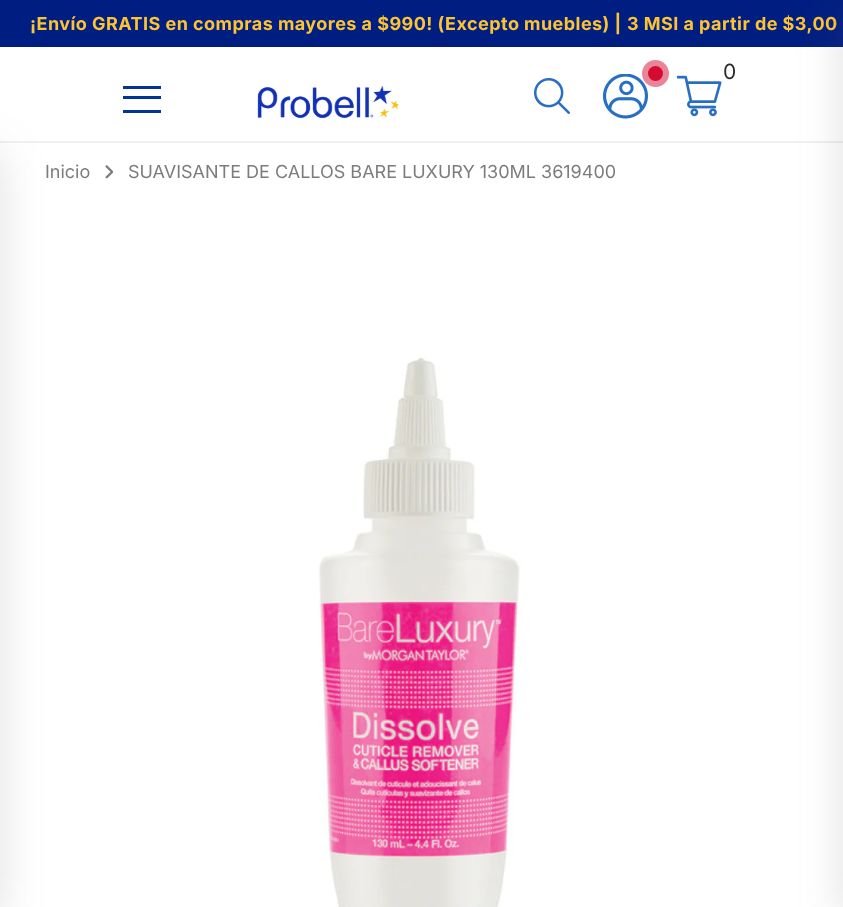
<svg xmlns="http://www.w3.org/2000/svg" width="843" height="907">
	<rect width="100%" height="100%" fill="#FFFFFF" />
	<rect x="0" y="0" width="843" height="47" fill="#001E82" />
	<g font-family="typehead" font-size="18" font-weight="700" letter-spacing="0.45" fill="#FDC431">
		<text x="30" y="30">¡Envío GRATIS en compras mayores a $990! (Excepto muebles) |</text>
		<text x="627" y="30">3 MSI a partir de $3,00</text>
	</g>
	<rect x="0" y="141" width="843" height="2" fill="#F0F0F0" />
	<image x="603" y="74" width="45" height="45" href="assets/img1.png" />
	<circle cx="655.5" cy="73.5" r="7.5" fill="#D50A31" />
	<circle cx="655.5" cy="73.5" r="13.5" fill="#D50A31" fill-opacity="0.5" />
	<image x="45" y="209" width="753" height="698" href="assets/img6.png" />
	<rect x="843" y="11" width="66" height="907" fill="#64646F" fill-opacity="0.2" filter="blur(22px)" />
	<text x="723" y="79" font-family="'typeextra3'" font-size="21" fill="#2A2A2A">0</text>
	<image x="677" y="75" width="45" height="42" href="assets/img2.png" />
	<image x="534" y="78" width="36" height="36" href="assets/img3.png" />
	<rect x="-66" y="153" width="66" height="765" fill="#64646F" fill-opacity="0.2" filter="blur(22px)" />
	<rect x="123" y="86" width="38" height="3" fill="#033692" />
	<rect x="123" y="96" width="38" height="3" fill="#033692" />
	<rect x="123" y="110" width="38" height="3" fill="#033692" />
	<image x="257" y="85" width="143" height="34" href="assets/img4.png" />
	<text x="45" y="178" font-family="'typeextra3'" font-size="18" fill="#7C7C7C">Inicio</text>
	<image x="105" y="165" width="9" height="14" href="assets/img5.png" />
	<text x="128" y="178" font-family="'typeextra3'" font-size="18" fill="#7C7C7C">SUAVISANTE DE CALLOS BARE LUXURY 130ML 3619400</text>
</svg>
